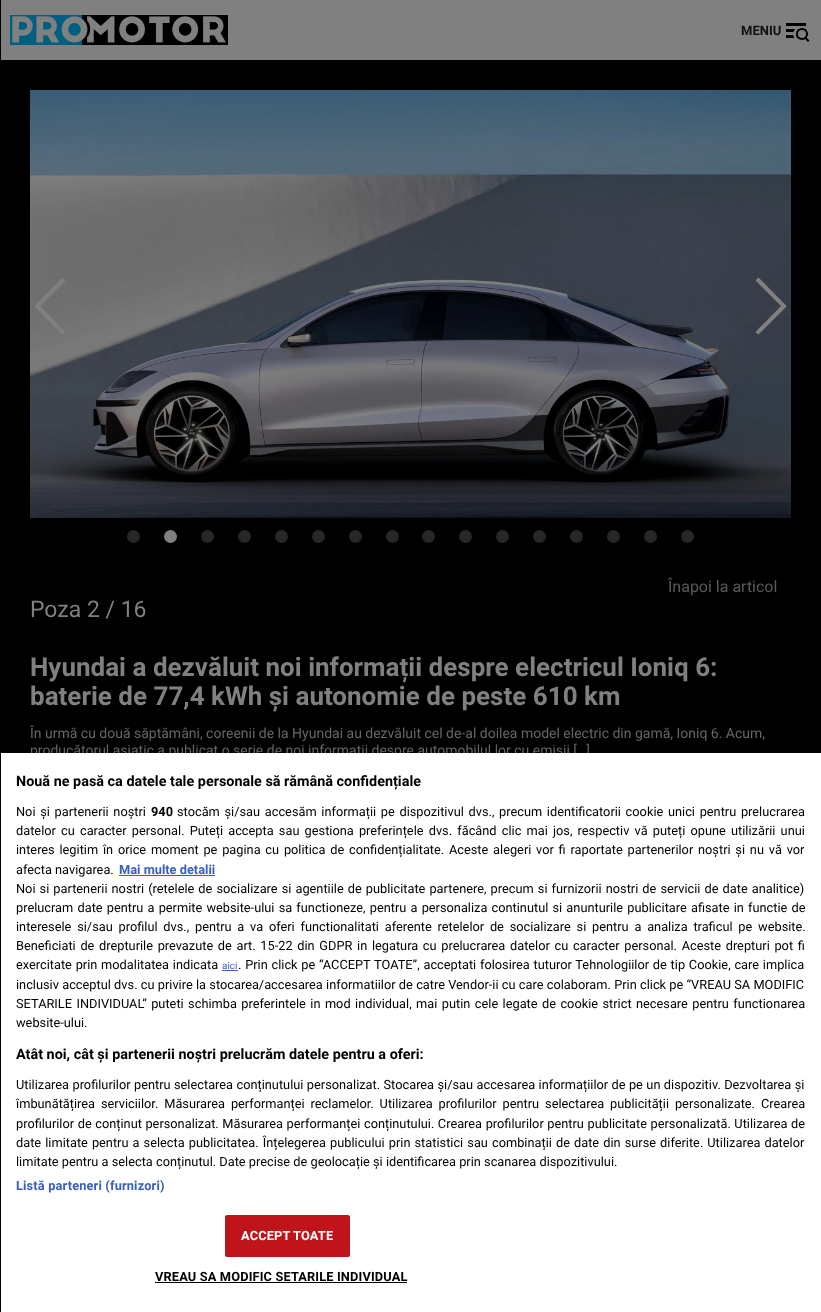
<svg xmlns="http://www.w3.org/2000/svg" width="821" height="1312">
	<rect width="100%" height="100%" fill="#808080" />
	<rect x="1" y="60" width="820" height="693" fill="#000000" />
	<rect x="0" y="753" width="821" height="559" fill="#000000" fill-opacity="0.2" filter="blur(9px)" />
	<rect x="0" y="0" width="1" height="1312" fill="#000000" />
	<image x="10" y="15" width="218" height="30" href="assets/img1.png" />
	<text x="741" y="35" font-family="Roboto" font-size="13" font-weight="700" fill="#111111">MENIU</text>
	<rect x="786" y="29" width="20" height="3" fill="#000000" />
	<rect x="786" y="23" width="20" height="3" fill="#000000" />
	<rect x="786" y="35" width="20" height="3" fill="#000000" />
	<path d="M799 28C790 28 792 42 800.5 40C794.5 38.5 794.5 29.5 800.5 28Z" fill="#808080" />
	<circle cx="802" cy="34" r="5" fill="#808080" stroke="#000000" stroke-width="2" />
	<path d="M804.5 38.5L806 37L809.5 40.5L808 42Z" fill="#000000" />
	<image x="30" y="90" width="761" height="428" href="assets/img2.png" />
	<path d="M34.5 306L62.5 277.5L65.5 280.5L37.5 308.5Z" fill="#808080" />
	<path d="M37.5 303.5L65.5 332L62.5 334.5L34.5 306.5Z" fill="#808080" />
	<path d="M758.5 277.5L786.5 306L783.5 308.5L755.5 280.5Z" fill="#808080" />
	<path d="M755.5 332L783.5 303.5L786.5 306.5L758.5 334.5Z" fill="#808080" />
	<circle cx="133.5" cy="536.5" r="6.5" fill="#272727" />
	<circle cx="170.5" cy="536.5" r="6.5" fill="#808080" />
	<circle cx="207.5" cy="536.5" r="6.5" fill="#272727" />
	<circle cx="244.5" cy="536.5" r="6.5" fill="#272727" />
	<circle cx="281.5" cy="536.5" r="6.5" fill="#272727" />
	<circle cx="318.5" cy="536.5" r="6.5" fill="#272727" />
	<circle cx="355.5" cy="536.5" r="6.5" fill="#272727" />
	<circle cx="392.5" cy="536.5" r="6.5" fill="#272727" />
	<circle cx="428.5" cy="536.5" r="6.5" fill="#272727" />
	<circle cx="465.5" cy="536.5" r="6.5" fill="#272727" />
	<circle cx="502.5" cy="536.5" r="6.5" fill="#272727" />
	<circle cx="539.5" cy="536.5" r="6.5" fill="#272727" />
	<circle cx="576.5" cy="536.5" r="6.5" fill="#272727" />
	<circle cx="613.5" cy="536.5" r="6.5" fill="#272727" />
	<circle cx="650.5" cy="536.5" r="6.5" fill="#272727" />
	<circle cx="687.5" cy="536.5" r="6.5" fill="#272727" />
	<text x="668" y="592" font-family="Roboto" font-size="16" fill="#5A5A5A">Înapoi la articol</text>
	<text x="30" y="617" font-family="Roboto" font-size="23" fill="#808080">Poza 2 / 16</text>
	<g font-family="Roboto" font-size="26" font-weight="700" fill="#808080">
		<text x="30" y="676">Hyundai a dezvăluit noi informații despre electricul Ioniq 6:</text>
		<text x="30" y="705">baterie de 77,4 kWh și autonomie de peste 610 km</text>
	</g>
	<g font-family="Roboto" font-size="14" fill="#666666">
		<text x="30" y="738">În urmă cu două săptămâni, coreenii de la Hyundai au dezvăluit cel de-al doilea model electric din gamă, Ioniq 6. Acum,</text>
		<text x="30" y="755">producătorul asiatic a publicat o serie de noi informații despre automobilul lor cu emisii […]</text>
	</g>
	<rect x="1" y="753" width="820" height="559" fill="#FFFFFF" />
	<text x="16" y="786" font-family="Roboto" font-size="14.4" font-weight="700" fill="#000000">Nouă ne pasă ca datele tale personale să rămână confidențiale</text>
	<text x="16" y="816" word-spacing="1.5" font-family="Roboto" font-size="12.8" fill="#000000">Noi și partenerii noștri</text>
	<text x="151" y="816" font-family="Roboto" font-size="12.8" font-weight="700" fill="#000000">940</text>
	<g font-family="Roboto" font-size="12.8" fill="#000000">
		<text x="177" y="816" word-spacing="1.5">stocăm și/sau accesăm informații pe dispozitivul dvs., precum identificatorii cookie unici pentru prelucrarea</text>
		<text x="16" y="835" word-spacing="2">datelor cu caracter personal. Puteți accepta sau gestiona preferințele dvs. făcând clic mai jos, respectiv vă puteți opune utilizării unui</text>
		<text x="16" y="854" word-spacing="1.6">interes legitim în orice moment pe pagina cu politica de confidențialitate. Aceste alegeri vor fi raportate partenerilor noștri și nu vă vor</text>
		<text x="16" y="874">afecta navigarea.</text>
	</g>
	<text x="119" y="874" font-family="Roboto" font-size="12.8" font-weight="700" fill="#3860BE">Mai multe detalii</text>
	<rect x="119" y="875" width="96" height="1" fill="#3860BE" />
	<g font-family="Roboto" font-size="12.8" fill="#000000">
		<text x="16" y="893" word-spacing="0.9">Noi si partenerii nostri (retelele de socializare si agentiile de publicitate partenere, precum si furnizorii nostri de servicii de date analitice)</text>
		<text x="16" y="912" word-spacing="1">prelucram date pentru a permite website-ului sa functioneze, pentru a personaliza continutul si anunturile publicitare afisate in functie de</text>
		<text x="16" y="931" word-spacing="2.6">interesele si/sau profilul dvs., pentru a va oferi functionalitati aferente retelelor de socializare si pentru a analiza traficul pe website.</text>
		<text x="16" y="950" word-spacing="1.5">Beneficiati de drepturile prevazute de art. 15-22 din GDPR in legatura cu prelucrarea datelor cu caracter personal. Aceste drepturi pot fi</text>
		<text x="16" y="969" word-spacing="0.6">exercitate prin modalitatea indicata</text>
	</g>
	<text x="222" y="969" font-family="Roboto" font-size="10" fill="#3860BE">aici</text>
	<rect x="222" y="970" width="16" height="1" fill="#3860BE" />
	<g font-family="Roboto" font-size="12.8" fill="#000000">
		<text x="238" y="969" word-spacing="0.6">. Prin click pe “ACCEPT TOATE”, acceptati folosirea tuturor Tehnologiilor de tip Cookie, care implica</text>
		<text x="16" y="989" word-spacing="0.1">inclusiv acceptul dvs. cu privire la stocarea/accesarea informatiilor de catre Vendor-ii cu care colaboram. Prin click pe “VREAU SA MODIFIC</text>
		<text x="16" y="1008" word-spacing="1.25">SETARILE INDIVIDUAL” puteti schimba preferintele in mod individual, mai putin cele legate de cookie strict necesare pentru functionarea</text>
		<text x="16" y="1027">website-ului.</text>
	</g>
	<text x="16" y="1059" font-family="Roboto" font-size="14.4" font-weight="700" fill="#000000">Atât noi, cât și partenerii noștri prelucrăm datele pentru a oferi:</text>
	<g font-family="Roboto" font-size="12.8" fill="#000000">
		<text x="16" y="1089" word-spacing="0.25">Utilizarea profilurilor pentru selectarea conținutului personalizat. Stocarea și/sau accesarea informațiilor de pe un dispozitiv. Dezvoltarea și</text>
		<text x="16" y="1108" word-spacing="2.75">îmbunătățirea serviciilor. Măsurarea performanței reclamelor. Utilizarea profilurilor pentru selectarea publicității personalizate. Crearea</text>
		<text x="16" y="1128" word-spacing="0.4">profilurilor de conținut personalizat. Măsurarea performanței conținutului. Crearea profilurilor pentru publicitate personalizată. Utilizarea de</text>
		<text x="16" y="1147" word-spacing="0.9">date limitate pentru a selecta publicitatea. Înțelegerea publicului prin statistici sau combinații de date din surse diferite. Utilizarea datelor</text>
		<text x="16" y="1166">limitate pentru a selecta conținutul. Date precise de geolocație și identificarea prin scanarea dispozitivului.</text>
	</g>
	<text x="16" y="1190" font-family="Roboto" font-size="12.8" font-weight="700" letter-spacing="0.15" fill="#3860BE">Listă parteneri (furnizori)</text>
	<rect x="225.5" y="1215.5" width="124" height="41" rx="1.5" fill="#BF141A" stroke="#BF141A" />
	<text x="241" y="1240" font-family="Roboto" font-size="12.8" font-weight="700" letter-spacing="0.15" fill="#FFFFFF">ACCEPT TOATE</text>
	<text x="155" y="1281" font-family="Roboto" font-size="12.8" font-weight="700" letter-spacing="0.15" fill="#000000">VREAU SA MODIFIC SETARILE INDIVIDUAL</text>
	<rect x="155" y="1282" width="252" height="1" fill="#000000" />
</svg>
